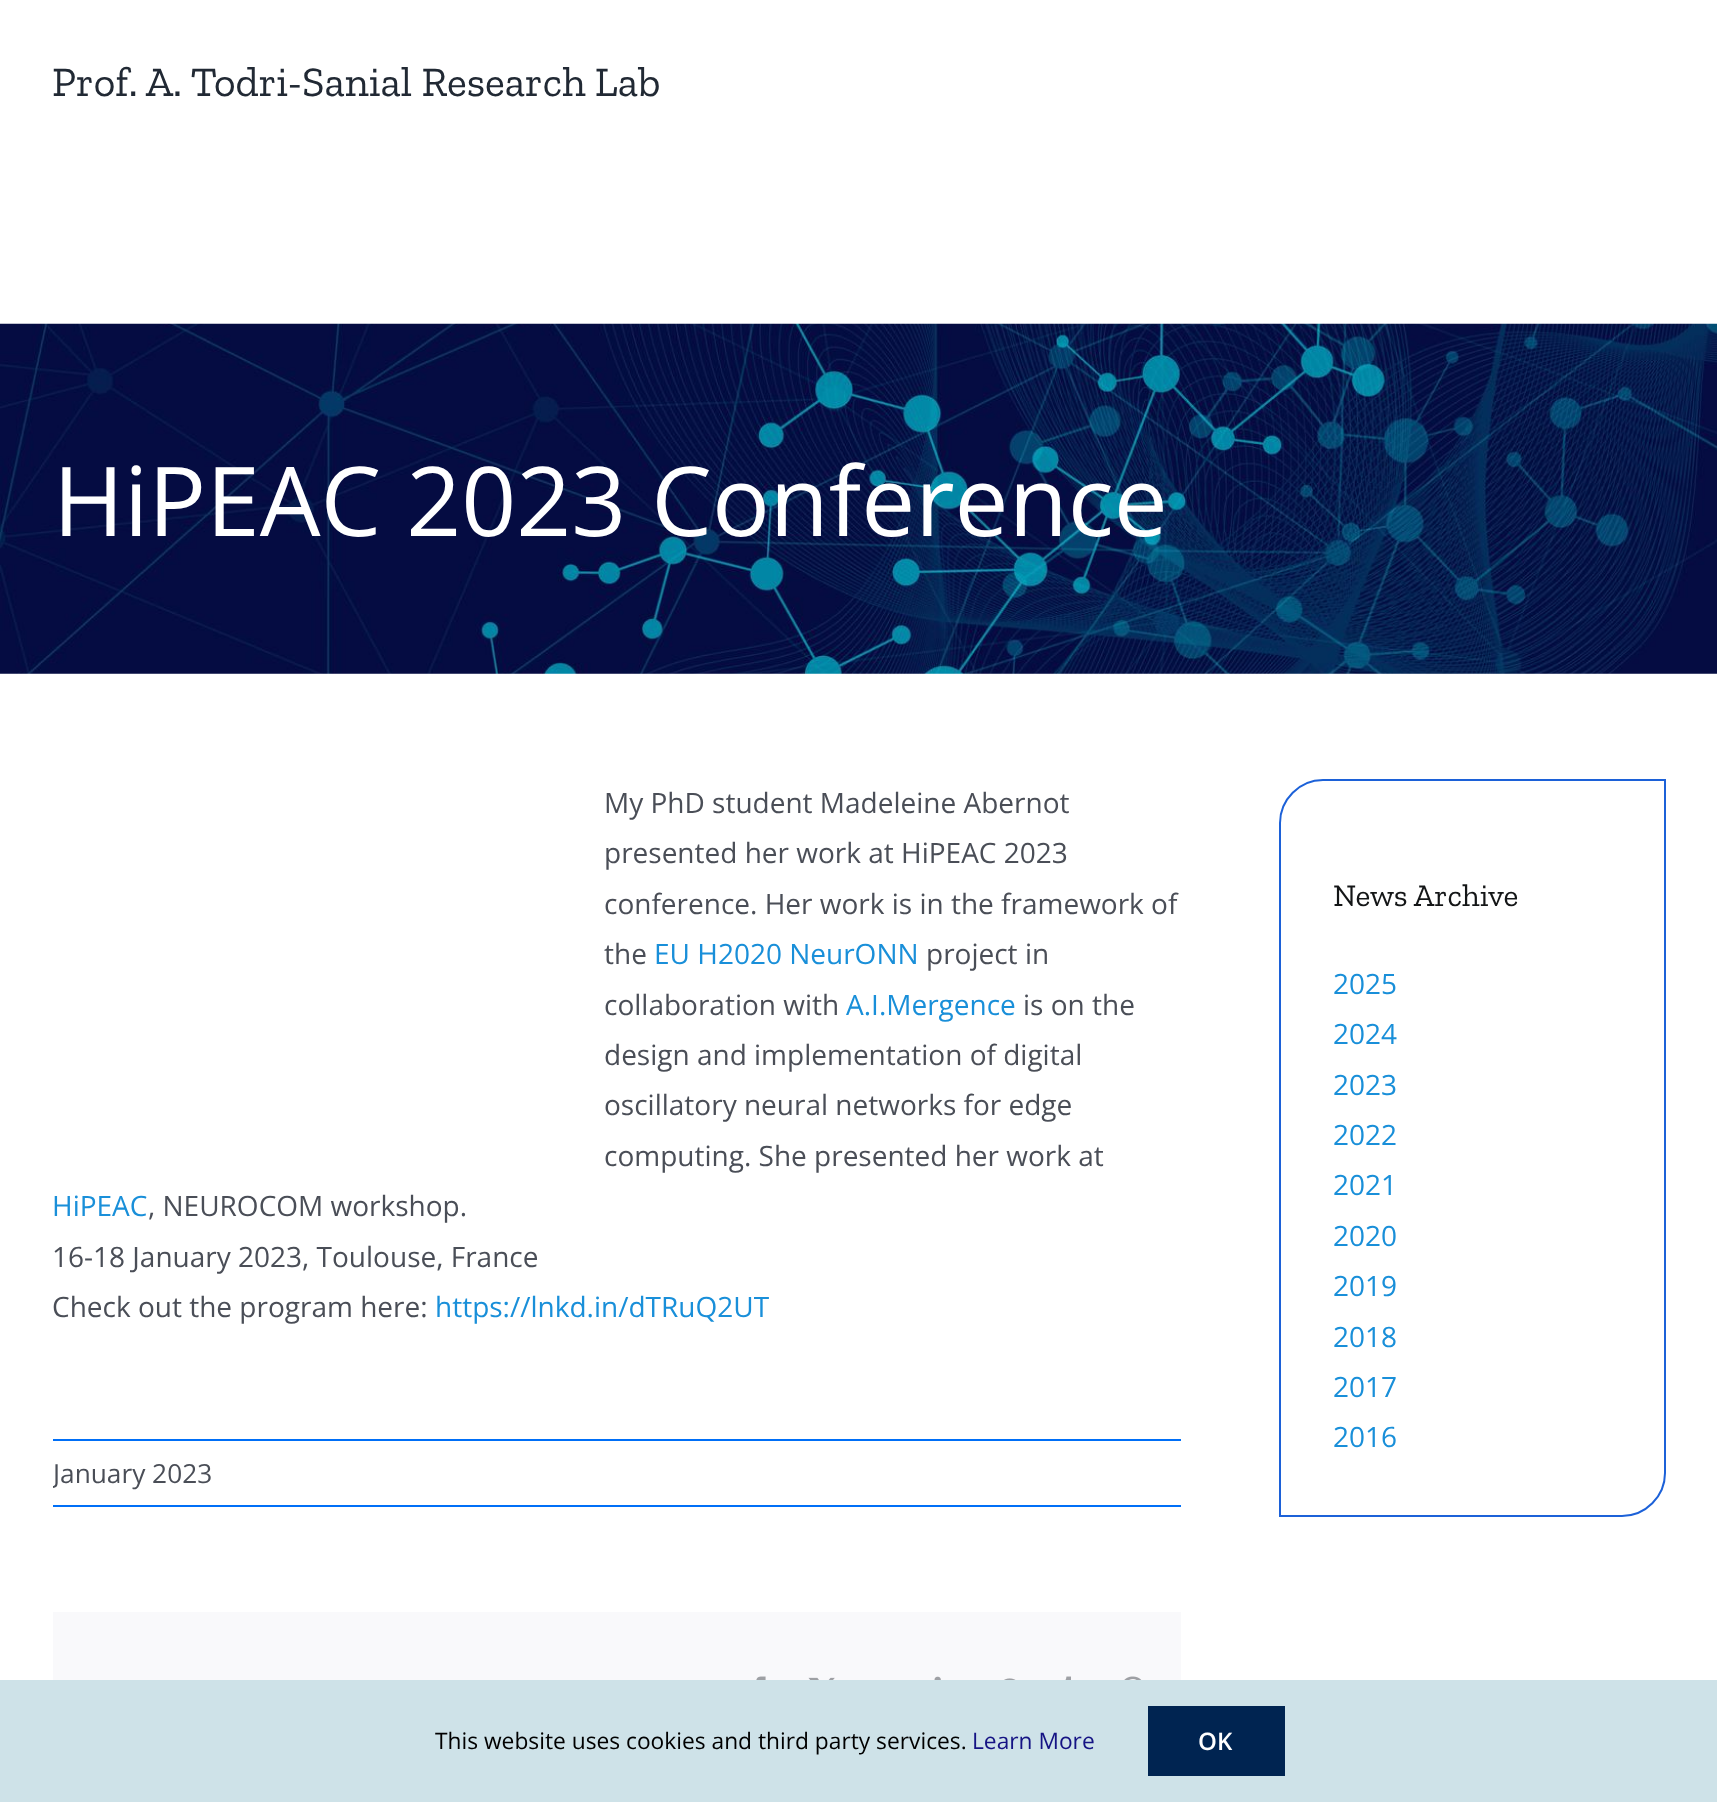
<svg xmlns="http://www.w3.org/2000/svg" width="1717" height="1802">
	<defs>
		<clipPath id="clip1"><rect x="53" y="1440" width="1128" height="65" /></clipPath>
	</defs>
	<rect width="100%" height="100%" fill="#FFFFFF" />
	<text x="52" y="96" font-family="Zilla Slab" font-size="42" fill="#212934">Prof. A. Todri-Sanial Research Lab</text>
	<image x="0" y="323" width="1717" height="351" href="assets/img1.png" />
	<text x="53" y="536" font-family="Open Sans" font-size="96.25" fill="#FFFFFF">HiPEAC 2023 Conference</text>
	<g font-family="Open Sans" font-size="28" fill="#4A4E57">
		<text x="604" y="813">My PhD student Madeleine Abernot</text>
		<text x="604" y="863">presented her work at HiPEAC 2023</text>
		<text x="604" y="914">conference. Her work is in the framework of</text>
		<text x="604" y="964">the</text>
	</g>
	<text x="654" y="964" font-family="Open Sans" font-size="28" fill="#198FD9">EU H2020 NeurONN</text>
	<g font-family="Open Sans" font-size="28" fill="#4A4E57">
		<text x="926" y="964">project in</text>
		<text x="604" y="1015">collaboration with</text>
	</g>
	<text x="846" y="1015" font-family="Open Sans" font-size="28" fill="#198FD9">A.I.Mergence</text>
	<g font-family="Open Sans" font-size="28" fill="#4A4E57">
		<text x="1023" y="1015">is on the</text>
		<text x="604" y="1065">design and implementation of digital</text>
		<text x="604" y="1115">oscillatory neural networks for edge</text>
		<text x="604" y="1166">computing. She presented her work at</text>
	</g>
	<text x="52" y="1216" font-family="Open Sans" font-size="28" fill="#198FD9">HiPEAC</text>
	<g font-family="Open Sans" font-size="28" fill="#4A4E57">
		<text x="148" y="1216">, NEUROCOM workshop.</text>
		<text x="52" y="1267">16-18 January 2023, Toulouse, France</text>
		<text x="52" y="1317">Check out the program here:</text>
	</g>
	<text x="435" y="1317" font-family="Open Sans" font-size="28" fill="#198FD9">https://lnkd.in/dTRuQ2UT</text>
	<rect x="53" y="1439" width="1128" height="2" fill="#006FF7" />
	<rect x="53" y="1505" width="1128" height="2" fill="#006FF7" />
	<g clip-path="url(#clip1)">
		<text x="53" y="1483" font-family="Open Sans" font-size="26.25" fill="#4A4E57">January 2023</text>
	</g>
	<rect x="53" y="1612" width="1128" height="68" fill="#F9F9FB" />
	<image x="756" y="1676" width="10" height="4" href="assets/img2.png" />
	<image x="808" y="1677" width="27" height="3" href="assets/img3.png" />
	<image x="934" y="1676" width="7" height="4" href="assets/img4.png" />
	<image x="1004" y="1678" width="12" height="2" href="assets/img5.png" />
	<image x="1065" y="1676" width="6" height="4" href="assets/img6.png" />
	<image x="1124" y="1676" width="18" height="4" href="assets/img7.png" />
	<path d="M1323 780H1665V1473C1665 1496.5 1645.5 1516 1622 1516H1280V823C1280 799.5 1299.5 780 1323 780Z" fill="none" stroke="#1C61D8" stroke-width="2" />
	<text x="1333" y="906" font-family="Zilla Slab" font-size="31.5" fill="#141617">News Archive</text>
	<g font-family="Open Sans" font-size="28" fill="#198FD9">
		<text x="1333" y="994">2025</text>
		<text x="1333" y="1044">2024</text>
		<text x="1333" y="1095">2023</text>
		<text x="1333" y="1145">2022</text>
		<text x="1333" y="1195">2021</text>
		<text x="1333" y="1246">2020</text>
		<text x="1333" y="1296">2019</text>
		<text x="1333" y="1347">2018</text>
		<text x="1333" y="1397">2017</text>
		<text x="1333" y="1447">2016</text>
	</g>
	<rect x="0" y="1680" width="1717" height="122" fill="#CEE2E8" />
	<text x="435" y="1749" font-family="Open Sans" font-size="22.75" fill="#000000">This website uses cookies and third party services.</text>
	<text x="972" y="1749" font-family="Open Sans" font-size="22.75" fill="#151384">Learn More</text>
	<rect x="1148" y="1706" width="137" height="70" fill="#002451" />
	<text x="1198" y="1750" font-family="Open Sans" font-size="24" font-weight="600" fill="#FFFFFF">OK</text>
</svg>
